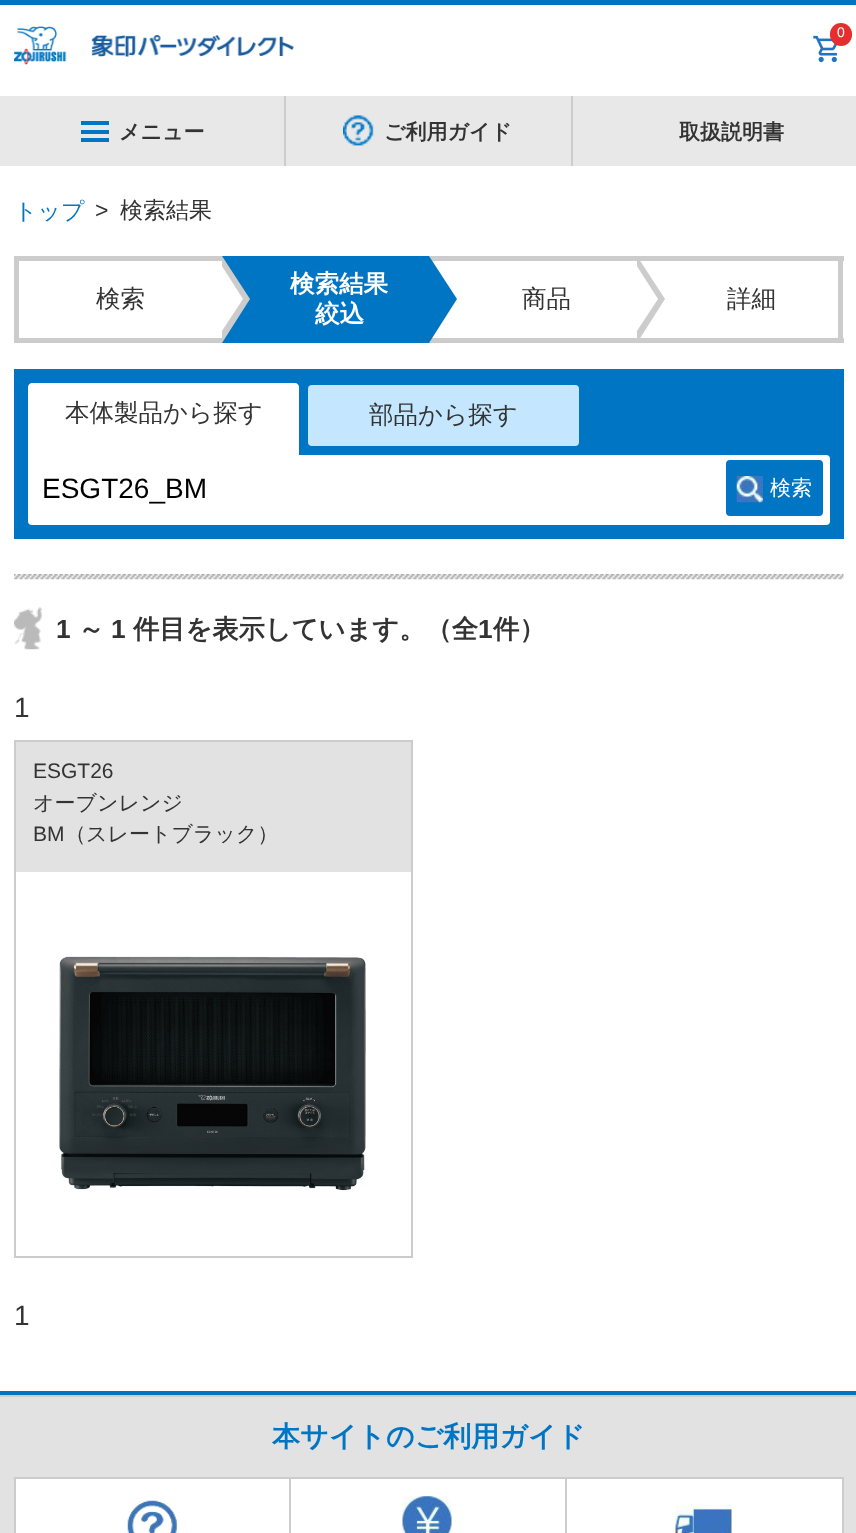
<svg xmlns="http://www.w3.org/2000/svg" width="856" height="1533">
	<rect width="100%" height="100%" fill="#FFFFFF" />
	<rect x="0" y="0" width="856" height="5" fill="#0075C4" />
	<image x="14" y="26" width="280" height="39" href="assets/img1.png" />
	<image x="813" y="35" width="24" height="28" href="assets/img2.png" />
	<rect x="830" y="23" width="22" height="23" rx="11" fill="#E52F2E" />
	<text x="837" y="37" font-family="Liberation Sans" font-size="14" fill="#FFFFFF">0</text>
	<rect x="0" y="96" width="856" height="70" fill="#E8E8E8" />
	<rect x="284" y="96" width="2" height="70" fill="#CCCCCC" />
	<rect x="81" y="121" width="28" height="4" fill="#0075C4" />
	<rect x="81" y="130" width="28" height="4" fill="#0075C4" />
	<rect x="81" y="138" width="28" height="4" fill="#0075C4" />
	<text x="119" y="139" font-family="WenQuanYi Zen Hei" font-size="21" font-weight="700" fill="#333333">メニュー</text>
	<rect x="571" y="96" width="2" height="70" fill="#CCCCCC" />
	<image x="343" y="115" width="31" height="31" href="assets/img3.png" />
	<g font-family="WenQuanYi Zen Hei" font-size="21" font-weight="700" fill="#333333">
		<text x="384" y="139">ご利用ガイド</text>
		<text x="679" y="139">取扱説明書</text>
	</g>
	<text x="14" y="219" font-family="WenQuanYi Zen Hei" font-size="23" font-weight="500" fill="#0075C4">トップ</text>
	<text x="95" y="218" font-family="Liberation Sans" font-size="23" fill="#333333">&gt;</text>
	<text x="120" y="218" font-family="WenQuanYi Zen Hei" font-size="23" font-weight="500" fill="#333333">検索結果</text>
	<rect x="14" y="256" width="208" height="5" fill="#CCCCCC" />
	<rect x="14" y="338" width="208" height="5" fill="#CCCCCC" />
	<rect x="14" y="256" width="5" height="87" fill="#CCCCCC" />
	<rect x="222" y="256" width="207" height="87" fill="#0075C4" />
	<path d="M222 343V256L250 299Z" fill="#CCCCCC" />
	<text x="96" y="307" font-family="WenQuanYi Zen Hei" font-size="24.5" font-weight="500" fill="#333333">検索</text>
	<path d="M218 337V260L243 299Z" fill="#FFFFFF" />
	<g font-family="WenQuanYi Zen Hei" font-size="24.5" font-weight="700" fill="#FFFFFF">
		<text x="290" y="292">検索結果</text>
		<text x="315" y="322">絞込</text>
	</g>
	<rect x="429" y="256" width="415" height="5" fill="#CCCCCC" />
	<rect x="429" y="338" width="208" height="5" fill="#CCCCCC" />
	<path d="M429 343V256L457 299Z" fill="#0075C4" />
	<rect x="838" y="256" width="5" height="87" fill="#CCCCCC" />
	<rect x="637" y="338" width="207" height="5" fill="#CCCCCC" />
	<path d="M637 343V256L665 299Z" fill="#CCCCCC" />
	<text x="522" y="307" font-family="WenQuanYi Zen Hei" font-size="24.5" font-weight="500" fill="#333333">商品</text>
	<path d="M633 337V260L658 299Z" fill="#FFFFFF" />
	<text x="727" y="307" font-family="WenQuanYi Zen Hei" font-size="24.5" font-weight="500" fill="#333333">詳細</text>
	<rect x="14" y="369" width="830" height="170" fill="#0075C4" />
	<path d="M32 383H295C297 383 299 385 299 387V455H28V387C28 385 30 383 32 383Z" fill="#FFFFFF" />
	<text x="65" y="421" font-family="WenQuanYi Zen Hei" font-size="24.5" font-weight="500" fill="#333333">本体製品から探す</text>
	<rect x="28" y="455" width="802" height="70" rx="4" fill="#FFFFFF" />
	<rect x="28" y="455" width="4" height="4" fill="#FFFFFF" />
	<rect x="308" y="385" width="271" height="61" rx="4" fill="#C4E7FF" />
	<text x="369" y="423" font-family="WenQuanYi Zen Hei" font-size="24.5" font-weight="500" fill="#333333">部品から探す</text>
	<text x="42" y="498" font-family="Liberation Sans" font-size="28" fill="#000000">ESGT26_BM</text>
	<rect x="726" y="460" width="97" height="56" rx="4" fill="#0075C4" />
	<image x="736" y="476" width="27" height="27" href="assets/img4.png" />
	<text x="770" y="495" font-family="WenQuanYi Zen Hei" font-size="21" font-weight="500" fill="#FFFFFF">検索</text>
	<image x="14" y="574" width="830" height="6" href="assets/img5.png" />
	<image x="14" y="607" width="28" height="43" href="assets/img6.png" />
	<text x="56" y="638" font-family="Liberation Sans" font-size="26.25" font-weight="700" fill="#333333">1</text>
	<text x="78" y="638" font-family="WenQuanYi Zen Hei" font-size="26.25" font-weight="700" fill="#333333">～</text>
	<text x="111" y="638" font-family="Liberation Sans" font-size="26.25" font-weight="700" fill="#333333">1</text>
	<text x="133" y="638" font-family="WenQuanYi Zen Hei" font-size="26.25" font-weight="700" fill="#333333">件目を表示しています。（全</text>
	<text x="478" y="638" font-family="Liberation Sans" font-size="26.25" font-weight="700" fill="#333333">1</text>
	<text x="493" y="638" font-family="WenQuanYi Zen Hei" font-size="26.25" font-weight="700" fill="#333333">件）</text>
	<text x="14" y="717" font-family="Liberation Sans" font-size="28" fill="#333333">1</text>
	<rect x="15" y="741" width="397" height="516" fill="none" stroke="#CCCCCC" stroke-width="2" />
	<rect x="16" y="742" width="395" height="130" fill="#E2E2E2" />
	<text x="33" y="778" font-family="Liberation Sans" font-size="21" fill="#333333">ESGT26</text>
	<text x="33" y="810" font-family="WenQuanYi Zen Hei" font-size="21" font-weight="500" fill="#333333">オーブンレンジ</text>
	<text x="33" y="841" font-family="Liberation Sans" font-size="21" fill="#333333">BM</text>
	<text x="65" y="841" font-family="WenQuanYi Zen Hei" font-size="21" font-weight="500" fill="#333333">（スレートブラック）</text>
	<image x="59" y="956" width="307" height="235" href="assets/img7.png" />
	<text x="14" y="1325" font-family="Liberation Sans" font-size="28" fill="#333333">1</text>
	<rect x="0" y="1397" width="856" height="136" fill="#E2E2E2" />
	<rect x="0" y="1391" width="856" height="4" fill="#0075C4" />
	<rect x="0" y="1395" width="856" height="2" fill="#CDCDCD" />
	<text x="272" y="1446" font-family="WenQuanYi Zen Hei" font-size="28" font-weight="700" fill="#0075C4">本サイトのご利用ガイド</text>
	<rect x="16" y="1479" width="826" height="54" fill="#FFFFFF" />
	<rect x="14" y="1477" width="830" height="2" fill="#CCCCCC" />
	<rect x="289" y="1479" width="2" height="54" fill="#CCCCCC" />
	<rect x="14" y="1479" width="2" height="54" fill="#CCCCCC" />
	<image x="127" y="1500" width="50" height="33" href="assets/img8.png" />
	<rect x="565" y="1479" width="2" height="54" fill="#CCCCCC" />
	<image x="402" y="1496" width="50" height="37" href="assets/img9.png" />
	<rect x="842" y="1479" width="2" height="54" fill="#CCCCCC" />
	<image x="675" y="1505" width="57" height="28" href="assets/img10.png" />
</svg>
